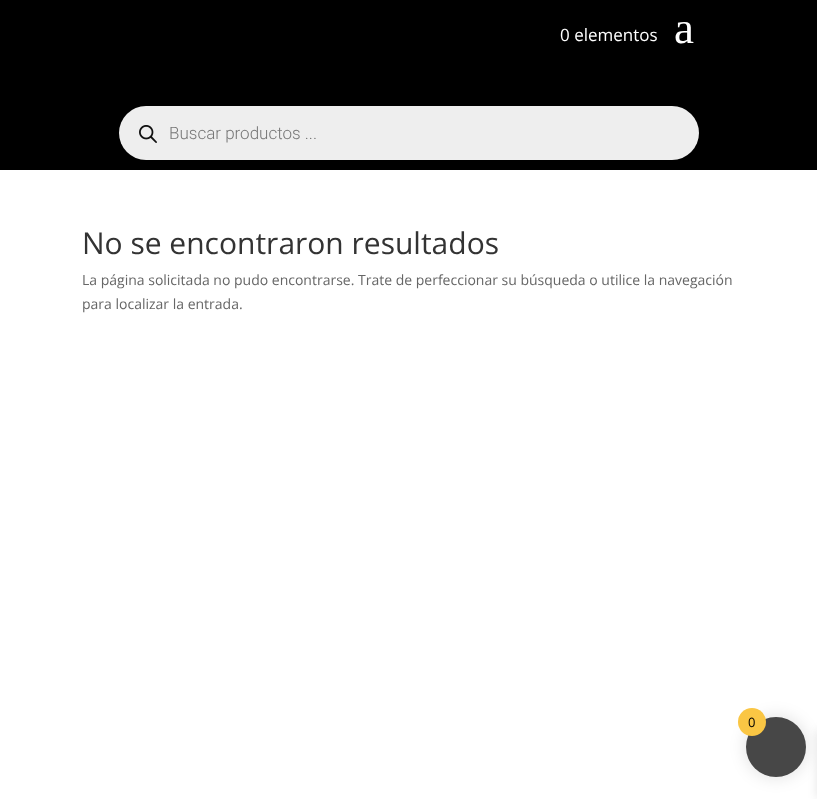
<svg xmlns="http://www.w3.org/2000/svg" width="817" height="799">
	<rect width="100%" height="100%" fill="#FFFFFF" />
	<rect x="0" y="0" width="817" height="170" fill="#000000" />
	<text x="560" y="41" font-family="Open Sans" font-size="17" fill="#FFFFFF">0 elementos</text>
	<text x="674" y="43" font-family="Liberation Serif" font-size="45" fill="#FFFFFF">a</text>
	<rect x="119" y="106" width="580" height="54" rx="27" fill="#EEEEEE" />
	<image x="139" y="125" width="18" height="18" href="assets/img1.png" />
	<text x="169" y="139" font-family="Roboto" font-size="17" font-weight="300" fill="#777777">Buscar productos ...</text>
	<text x="82" y="254" font-family="Open Sans" font-size="30" fill="#333333">No se encontraron resultados</text>
	<g font-family="Open Sans" font-size="14" fill="#666666">
		<text x="82" y="285">La página solicitada no pudo encontrarse. Trate de perfeccionar su búsqueda o utilice la navegación</text>
		<text x="82" y="309">para localizar la entrada.</text>
	</g>
	<rect x="744" y="715" width="64" height="64" rx="32" fill="#000000" fill-opacity="0.1" filter="blur(7.5px)" />
	<rect x="817" y="730" width="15" height="68" fill="#000000" fill-opacity="0.1" filter="blur(5px)" />
	<circle cx="776" cy="747" r="30" fill="#474747" />
	<circle cx="752" cy="722" r="14" fill="#FAC644" />
	<text x="748" y="727" font-family="Open Sans" font-size="13" fill="#000000">0</text>
</svg>
